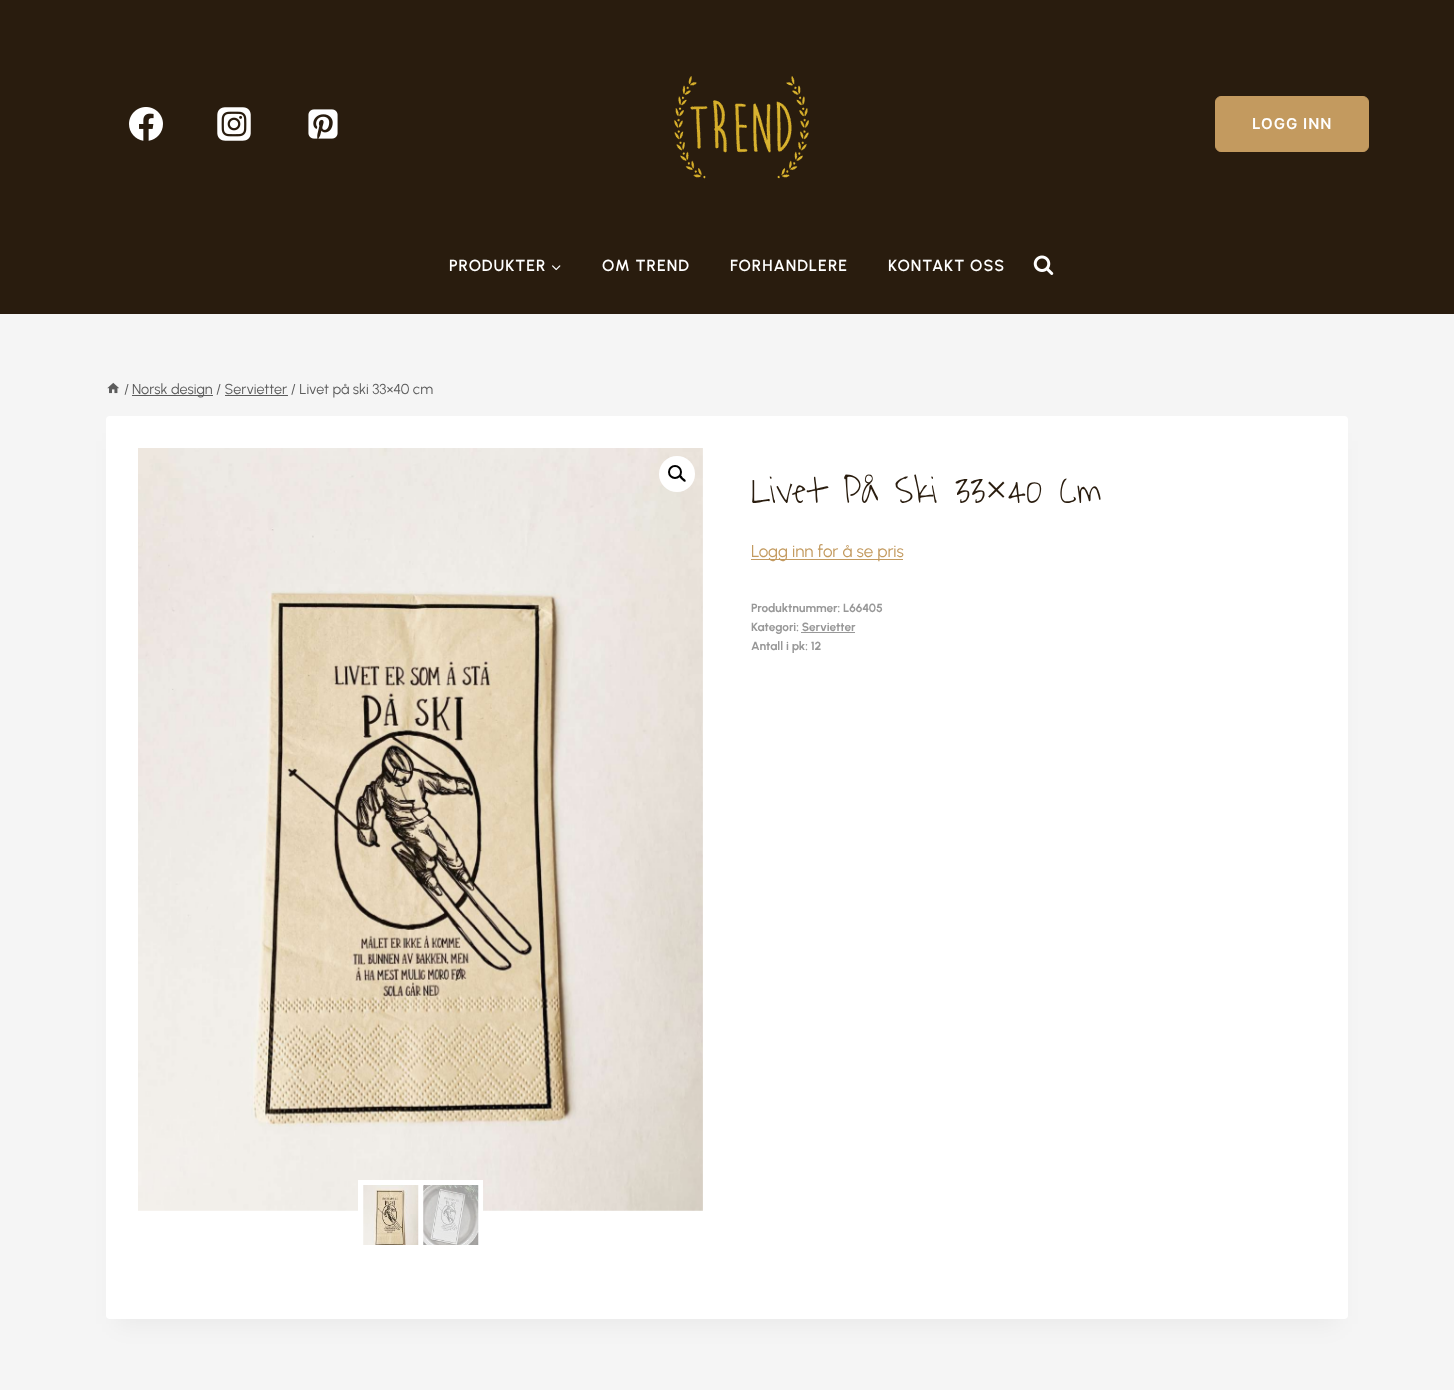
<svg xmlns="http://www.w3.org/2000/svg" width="1454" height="1390">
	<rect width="100%" height="100%" fill="#F5F5F5" />
	<rect x="0" y="0" width="1454" height="314" fill="#291C0E" />
	<image x="129" y="107" width="34" height="34" href="assets/img1.png" />
	<image x="217" y="107" width="34" height="34" href="assets/img2.png" />
	<image x="308" y="109" width="30" height="30" href="assets/img3.png" />
	<image x="674" y="76" width="135" height="103" href="assets/img4.png" />
	<rect x="1215.5" y="96.5" width="153" height="55" rx="5.5" fill="#C39A5F" stroke="#C39A5F" />
	<text x="1252" y="129" font-family="Inter" font-size="15" font-weight="600" letter-spacing="1" fill="#FFFFFF">LOGG INN</text>
	<text x="449" y="271" font-family="Urbanist" font-size="16" font-weight="600" letter-spacing="1" fill="#FFFFFF">PRODUKTER</text>
	<image x="552" y="265" width="9" height="6" href="assets/img5.png" />
	<g font-family="Urbanist" font-size="16" font-weight="600" letter-spacing="1" fill="#FFFFFF">
		<text x="602" y="271">OM TREND</text>
		<text x="730" y="271">FORHANDLERE</text>
		<text x="888" y="271">KONTAKT OSS</text>
	</g>
	<image x="1033" y="255" width="21" height="20" href="assets/img6.png" />
	<image x="107" y="382" width="12" height="12" href="assets/img7.png" />
	<text x="124" y="394" font-family="Urbanist" font-size="14.45" fill="#5C5C5C">/</text>
	<rect x="132" y="395" width="81" height="1" fill="#5C5C5C" />
	<text x="132" y="394" font-family="Urbanist" font-size="14.45" fill="#5C5C5C">Norsk design / Servietter / Livet på ski 33×40 cm</text>
	<rect x="225" y="395" width="63" height="1" fill="#5C5C5C" />
	<rect x="116" y="441" width="1222" height="883" fill="#000000" fill-opacity="0.05" filter="blur(12.5px)" />
	<rect x="106" y="416" width="1242" height="903" rx="4" fill="#FFFFFF" />
	<image x="138" y="448" width="565" height="763" href="assets/img8.png" />
	<circle cx="677" cy="474" r="18" fill="#FFFFFF" />
	<circle cx="675" cy="472" r="6" fill="none" stroke="#000000" stroke-width="2" />
	<path d="M679.5 475.5C681 474.5 682.5 477 683 478C684 478.5 686.5 480 685.5 481.5C684 482.5 682.5 480 681.5 479.5C681 478.5 678.5 477 679.5 475.5Z" fill="#000000" />
	<rect x="358" y="1180" width="125" height="31" fill="#FFFFFF" />
	<image x="363" y="1185" width="56" height="60" href="assets/img9.png" />
	<image x="423" y="1185" width="56" height="60" href="assets/img10.png" />
	<text x="751" y="503" font-family="Waiting for the Sunrise" font-size="40" font-weight="300" fill="#291C0E">Livet På Ski 33</text>
	<text x="985" y="503" font-family="Liberation Serif" font-size="40" fill="#291C0E">×</text>
	<text x="1008" y="503" font-family="Waiting for the Sunrise" font-size="40" font-weight="300" fill="#291C0E">40 Cm</text>
	<rect x="751" y="559" width="152" height="1" fill="#C39A5F" />
	<text x="751" y="557" font-family="Urbanist" font-size="17" fill="#C39A5F">Logg inn for å se pris</text>
	<g font-family="Urbanist" font-size="11.9" font-weight="700" fill="#989898">
		<text x="751" y="612">Produktnummer: L66405</text>
		<text x="751" y="631">Kategori: Servietter</text>
	</g>
	<rect x="801" y="632" width="54" height="1" fill="#989898" />
	<text x="751" y="650" font-family="Urbanist" font-size="11.9" font-weight="700" fill="#989898">Antall i pk: 12</text>
</svg>
